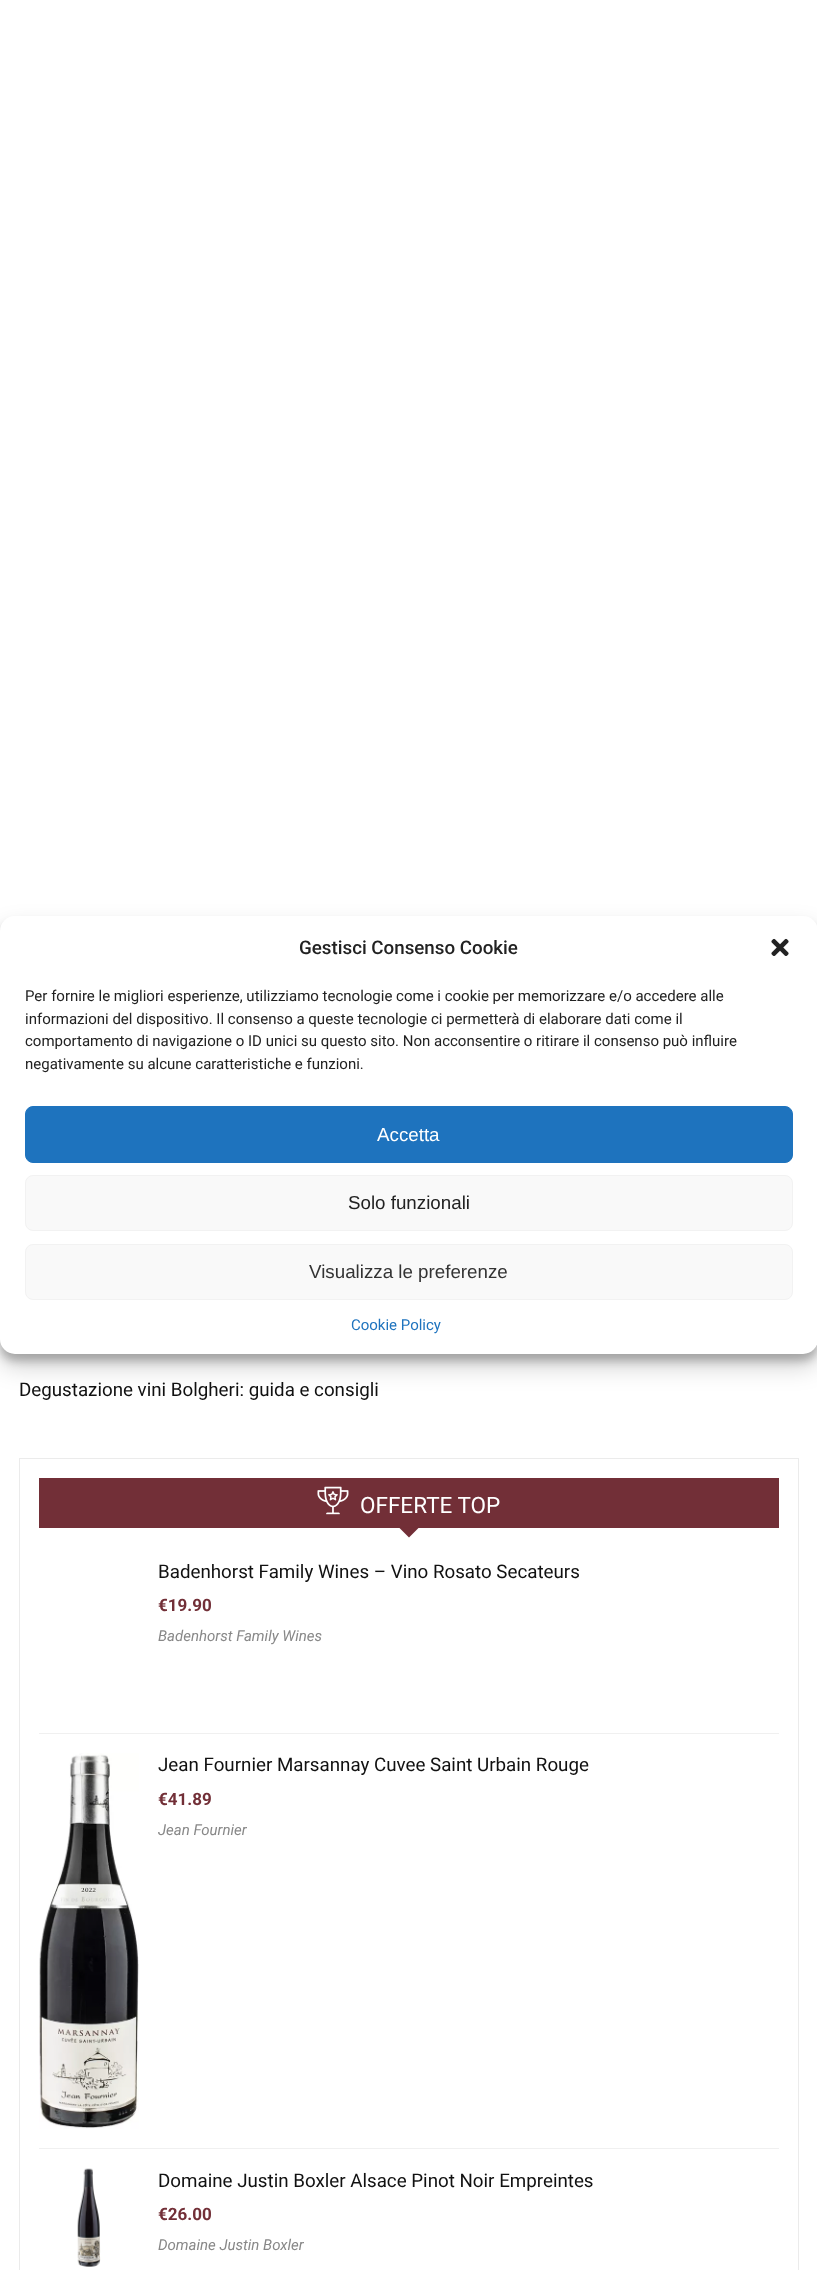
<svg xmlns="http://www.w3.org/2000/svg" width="817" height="2270">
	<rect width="100%" height="100%" fill="#FFFFFF" />
	<rect x="0" y="924" width="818" height="437" rx="15" fill="#000000" fill-opacity="0.23" filter="blur(4px)" />
	<rect x="0" y="929" width="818" height="437" rx="15" fill="#000000" fill-opacity="0.19" filter="blur(12.5px)" />
	<rect x="0" y="916" width="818" height="438" rx="15" fill="#FFFFFF" />
	<text x="299" y="954" font-family="Roboto" font-size="18.75" font-weight="500" fill="#222222">Gestisci Consenso Cookie</text>
	<image x="771" y="938" width="18" height="18" href="assets/img1.png" />
	<g font-family="Roboto" font-size="15" fill="#222222">
		<text x="25" y="1001">Per fornire le migliori esperienze, utilizziamo tecnologie come i cookie per memorizzare e/o accedere alle</text>
		<text x="25" y="1024">informazioni del dispositivo. Il consenso a queste tecnologie ci permetterà di elaborare dati come il</text>
		<text x="25" y="1046">comportamento di navigazione o ID unici su questo sito. Non acconsentire o ritirare il consenso può influire</text>
		<text x="25" y="1069">negativamente su alcune caratteristiche e funzioni.</text>
	</g>
	<rect x="25.5" y="1106.5" width="767" height="56" rx="7.5" fill="#1E73BE" stroke="#1E73BE" />
	<text x="377" y="1141" font-family="Liberation Sans" font-size="18.75" fill="#FFFFFF">Accetta</text>
	<rect x="25.5" y="1175.5" width="767" height="55" rx="7.5" fill="#F9F9F9" stroke="#F2F2F2" />
	<text x="348" y="1209" font-family="Liberation Sans" font-size="18.75" fill="#222222">Solo funzionali</text>
	<rect x="25.5" y="1244.5" width="767" height="55" rx="7.5" fill="#F9F9F9" stroke="#F2F2F2" />
	<text x="309" y="1278" font-family="Liberation Sans" font-size="18.75" fill="#333333">Visualizza le preferenze</text>
	<text x="351" y="1330" font-family="Roboto" font-size="15" fill="#1E73BE">Cookie Policy</text>
	<text x="19" y="1396" font-family="Roboto" font-size="18.75" fill="#111111">Degustazione vini Bolgheri: guida e consigli</text>
	<rect x="19.5" y="1458.5" width="779" height="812" fill="none" stroke="#EBEBEB" />
	<rect x="39" y="1478" width="740" height="50" fill="#722F37" />
	<image x="317" y="1486" width="32" height="29" href="assets/img2.png" />
	<text x="360" y="1513" font-family="Roboto" font-size="22.5" fill="#FFFFFF">OFFERTE TOP</text>
	<path d="M399 1527.5H419L409 1537.5Z" fill="#722F37" />
	<rect x="39" y="1733" width="740" height="1" fill="#F0F0F0" />
	<text x="158" y="1578" font-family="Roboto" font-size="18.75" fill="#111111">Badenhorst Family Wines – Vino Rosato Secateurs</text>
	<text x="158" y="1611" font-family="Roboto" font-size="17" font-weight="700" fill="#722F37">€19.90</text>
	<text x="158" y="1641" font-family="Roboto" font-size="15" font-style="italic" fill="#888888">Badenhorst Family Wines</text>
	<rect x="39" y="2148" width="740" height="1" fill="#F0F0F0" />
	<image x="39" y="1753" width="100" height="376" href="assets/img3.png" />
	<text x="158" y="1771" font-family="Roboto" font-size="18.75" fill="#111111">Jean Fournier Marsannay Cuvee Saint Urbain Rouge</text>
	<text x="158" y="1805" font-family="Roboto" font-size="17" font-weight="700" fill="#722F37">€41.89</text>
	<text x="158" y="1835" font-family="Roboto" font-size="15" font-style="italic" fill="#888888">Jean Fournier</text>
	<image x="77" y="2168" width="24" height="99" href="assets/img4.png" />
	<text x="158" y="2187" font-family="Roboto" font-size="18.75" fill="#111111">Domaine Justin Boxler Alsace Pinot Noir Empreintes</text>
	<text x="158" y="2220" font-family="Roboto" font-size="17" font-weight="700" fill="#722F37">€26.00</text>
	<text x="158" y="2250" font-family="Roboto" font-size="15" font-style="italic" fill="#888888">Domaine Justin Boxler</text>
</svg>
